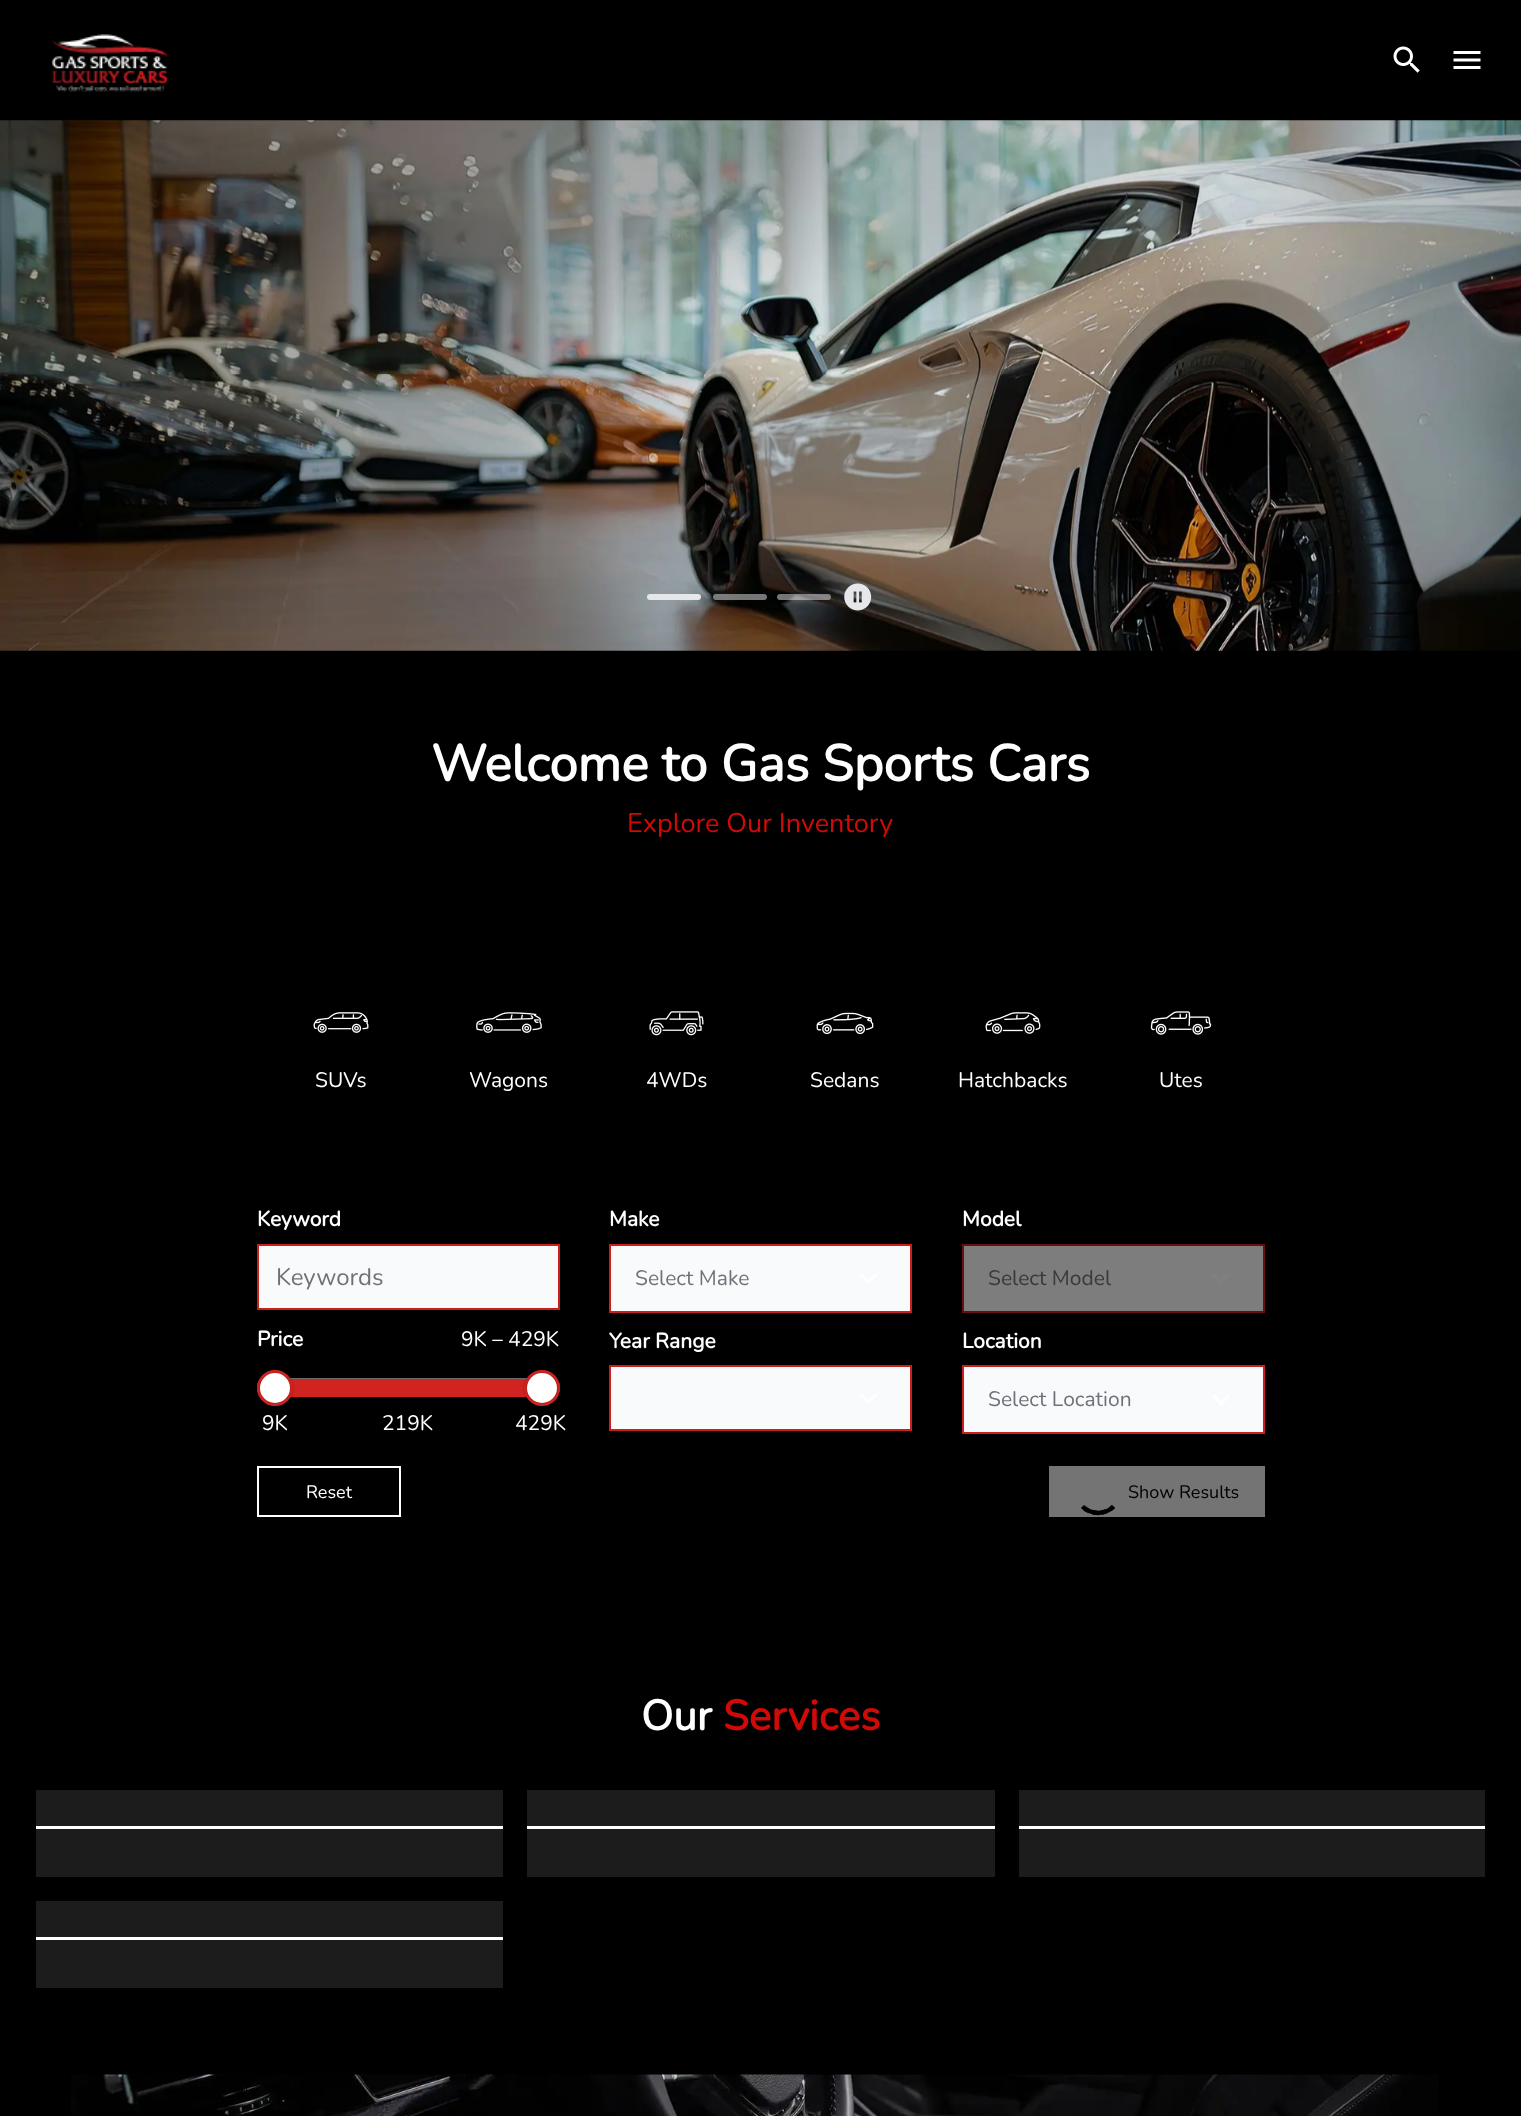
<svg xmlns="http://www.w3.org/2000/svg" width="1521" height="2116">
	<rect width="100%" height="100%" fill="#000000" />
	<image x="52" y="34" width="117" height="58" href="assets/img1.png" />
	<image x="1393" y="46" width="27" height="27" href="assets/img2.png" />
	<image x="1453" y="51" width="28" height="18" href="assets/img3.png" />
	<image x="0" y="120" width="1521" height="531" href="assets/img4.png" />
	<rect x="647" y="594" width="54" height="6" rx="3" fill="#E5E7EB" />
	<rect x="713" y="594" width="54" height="6" rx="3" fill="#E5E7EB" fill-opacity="0.5" />
	<rect x="777" y="594" width="54" height="6" rx="3" fill="#E5E7EB" fill-opacity="0.5" />
	<image x="844" y="583" width="28" height="28" href="assets/img5.png" />
	<text x="431" y="781" font-family="Nunito" font-size="51" font-weight="700" fill="#FFFFFF">Welcome to Gas Sports Cars</text>
	<text x="627" y="832" font-family="Nunito" font-size="27" font-weight="200" fill="#D10A07">Explore Our Inventory</text>
	<image x="313" y="1012" width="56" height="21" href="assets/img6.png" />
	<text x="315" y="1087" font-family="Nunito" font-size="21" font-weight="200" fill="#FFFFFF">SUVs</text>
	<image x="476" y="1012" width="66" height="21" href="assets/img7.png" />
	<text x="469" y="1087" font-family="Nunito" font-size="21" font-weight="200" fill="#FFFFFF">Wagons</text>
	<image x="649" y="1011" width="55" height="25" href="assets/img8.png" />
	<text x="646" y="1087" font-family="Nunito" font-size="21" font-weight="200" fill="#FFFFFF">4WDs</text>
	<image x="816" y="1012" width="58" height="23" href="assets/img9.png" />
	<text x="810" y="1087" font-family="Nunito" font-size="21" font-weight="200" fill="#FFFFFF">Sedans</text>
	<image x="985" y="1012" width="56" height="22" href="assets/img10.png" />
	<text x="958" y="1087" font-family="Nunito" font-size="21" font-weight="200" fill="#FFFFFF">Hatchbacks</text>
	<image x="1150" y="1011" width="62" height="24" href="assets/img11.png" />
	<text x="1159" y="1087" font-family="Nunito" font-size="21" font-weight="200" fill="#FFFFFF">Utes</text>
	<text x="257" y="1226" font-family="Nunito" font-size="21" font-weight="700" fill="#FFFFFF">Keyword</text>
	<rect x="258" y="1245" width="301" height="64" fill="#F9FAFB" stroke="#CC1F1D" stroke-width="2" />
	<text x="276" y="1285" font-family="Nunito" font-size="24" font-weight="200" fill="#71717A">Keywords</text>
	<text x="609" y="1226" font-family="Nunito" font-size="21" font-weight="700" fill="#FFFFFF">Make</text>
	<rect x="610" y="1245" width="301" height="67" fill="#F9FAFB" stroke="#CC1F1D" stroke-width="2" />
	<text x="635" y="1285" font-family="Nunito" font-size="21" font-weight="200" fill="#71717A">Select Make</text>
	<path d="M861.5 1273L868.5 1280L875.5 1273L877.5 1275L868.5 1284L859.5 1275Z" fill="#FFFFFF" />
	<text x="962" y="1226" font-family="Nunito" font-size="21" font-weight="700" fill="#FFFFFF">Model</text>
	<rect x="963" y="1245" width="301" height="67" fill="#7D7D7E" stroke="#66100F" stroke-width="2" />
	<text x="988" y="1285" font-family="Nunito" font-size="21" font-weight="200" fill="#39393D">Select Model</text>
	<path d="M1214 1273L1221 1280L1228 1273L1230 1275L1221 1284L1212 1275Z" fill="#808080" />
	<text x="257" y="1346" font-family="Nunito" font-size="21" font-weight="700" fill="#FFFFFF">Price</text>
	<text x="461" y="1346" font-family="Nunito" font-size="21" font-weight="200" fill="#FFFFFF">9K – 429K</text>
	<rect x="290" y="1378" width="237" height="1" fill="#6A6A6C" />
	<rect x="559" y="1383" width="1" height="9" fill="#D10A07" />
	<rect x="257" y="1383" width="1" height="9" fill="#D10A07" />
	<rect x="290" y="1379" width="237" height="18" fill="#D12421" />
	<rect x="257" y="1370" width="36" height="36" rx="18" fill="#000000" fill-opacity="0.3" filter="blur(1px)" />
	<circle cx="275" cy="1388" r="18" fill="#D12421" />
	<rect x="260" y="1373" width="30" height="30" rx="15" fill="#000000" fill-opacity="0.3" filter="blur(1px)" />
	<circle cx="275" cy="1388" r="15" fill="#FFFFFF" />
	<rect x="524" y="1370" width="36" height="36" rx="18" fill="#000000" fill-opacity="0.3" filter="blur(1px)" />
	<circle cx="542" cy="1388" r="18" fill="#D12421" />
	<rect x="527" y="1373" width="30" height="30" rx="15" fill="#000000" fill-opacity="0.3" filter="blur(1px)" />
	<circle cx="542" cy="1388" r="15" fill="#FFFFFF" />
	<g font-family="Nunito" font-size="21" font-weight="200" fill="#FFFFFF">
		<text x="262" y="1430">9K</text>
		<text x="382" y="1430">219K</text>
		<text x="515" y="1430">429K</text>
	</g>
	<text x="609" y="1348" font-family="Nunito" font-size="21" font-weight="700" fill="#FFFFFF">Year Range</text>
	<rect x="610" y="1366" width="301" height="64" fill="#F9FAFB" stroke="#CC1F1D" stroke-width="2" />
	<path d="M861.5 1393L868.5 1400L875.5 1393L877.5 1395L868.5 1404L859.5 1395Z" fill="#FFFFFF" />
	<text x="962" y="1348" font-family="Nunito" font-size="21" font-weight="700" fill="#FFFFFF">Location</text>
	<rect x="963" y="1366" width="301" height="67" fill="#F9FAFB" stroke="#CC1F1D" stroke-width="2" />
	<text x="988" y="1406" font-family="Nunito" font-size="21" font-weight="200" fill="#71717A">Select Location</text>
	<path d="M1214 1394.5L1221 1401.5L1228 1394.5L1230 1396.5L1221 1405.5L1212 1396.5Z" fill="#FFFFFF" />
	<rect x="258" y="1467" width="142" height="49" fill="none" stroke="#FFFFFF" stroke-width="2" />
	<text x="306" y="1498" font-family="Nunito" font-size="18" font-weight="200" fill="#FFFFFF">Reset</text>
	<rect x="1049" y="1466" width="216" height="51" fill="#747474" />
	<text x="1128" y="1498" font-family="Nunito" font-size="18" font-weight="200" fill="#000000">Show Results</text>
	<path d="M1113.5 1506.5C1105 1515 1091 1515 1082.5 1506.5" fill="none" stroke="#000000" stroke-width="4.5" />
	<path d="M1113.5 1506.5C1105 1515 1091 1515 1082.5 1506.5" fill="none" stroke="#000000" stroke-width="4.5" stroke-dasharray="4.5 4.5" />
	<text x="641" y="1730" font-family="Nunito" font-size="42" font-weight="700" fill="#FFFFFF">Our</text>
	<text x="723" y="1730" font-family="Nunito" font-size="42" font-weight="700" fill="#D10A07">Services</text>
	<rect x="36" y="1790" width="467" height="87" fill="#1C1C1C" />
	<rect x="36" y="1826" width="467" height="3" fill="#FFFFFF" />
	<rect x="527" y="1790" width="468" height="87" fill="#1C1C1C" />
	<rect x="527" y="1826" width="468" height="3" fill="#FFFFFF" />
	<rect x="1019" y="1790" width="466" height="87" fill="#1C1C1C" />
	<rect x="1019" y="1826" width="466" height="3" fill="#FFFFFF" />
	<rect x="36" y="1901" width="467" height="87" fill="#1C1C1C" />
	<rect x="36" y="1937" width="467" height="3" fill="#FFFFFF" />
	<image x="71" y="2074" width="1368" height="42" href="assets/img12.png" />
</svg>
